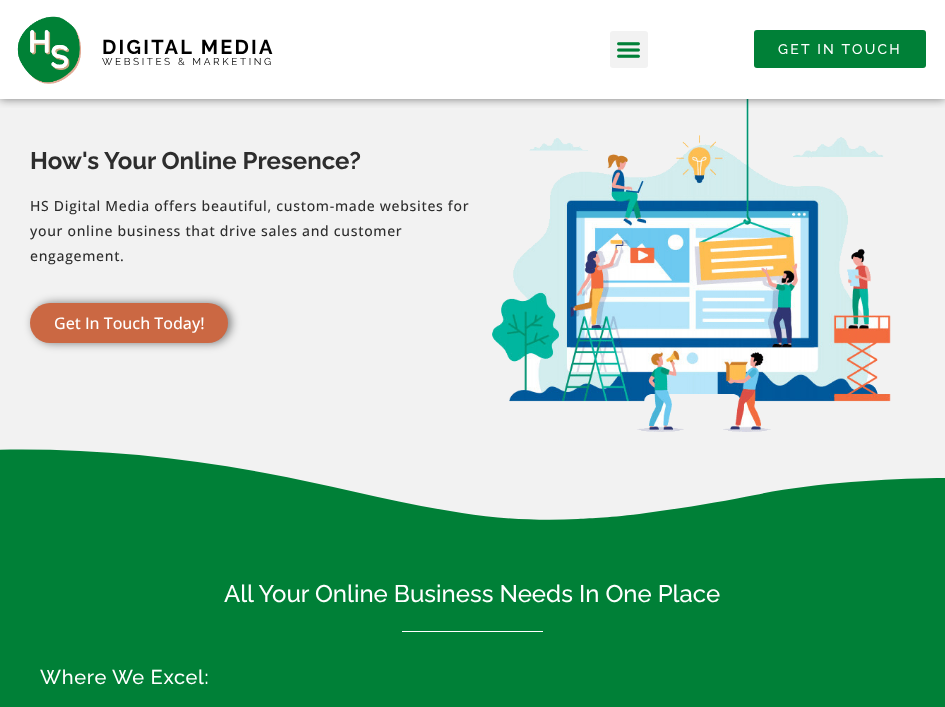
<svg xmlns="http://www.w3.org/2000/svg" width="945" height="707">
	<defs>
		<clipPath id="clip1"><rect x="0" y="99" width="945" height="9" /></clipPath>
	</defs>
	<rect width="100%" height="100%" fill="#FFFFFF" />
	<rect x="0" y="99" width="945" height="421" fill="#F2F2F2" />
	<image x="492" y="99" width="399" height="333" href="assets/img3.png" />
	<g clip-path="url(#clip1)">
		<rect x="0" y="0" width="945" height="99" fill="#000000" fill-opacity="0.5" filter="blur(5px)" />
	</g>
	<image x="17" y="16" width="64" height="68" href="assets/img1.png" />
	<text x="102" y="54" font-family="Raleway" font-size="20" font-weight="700" letter-spacing="2.25" fill="#000000">DIGITAL MEDIA</text>
	<text x="102" y="65" font-family="Raleway" font-size="10" letter-spacing="2.6" fill="#000000">WEBSITES &amp; MARKETING</text>
	<rect x="610" y="31" width="38" height="37" rx="3" fill="#F2F2F2" />
	<image x="617" y="42" width="23" height="16" href="assets/img2.png" />
	<rect x="754" y="30" width="172" height="38" rx="3" fill="#008037" />
	<text x="778" y="54" font-family="Raleway" font-size="14" font-weight="500" letter-spacing="2.25" fill="#FFFFFF">GET IN TOUCH</text>
	<text x="30" y="169" font-family="Raleway" font-size="24" font-weight="700" fill="#2D2D2D">How's Your Online Presence?</text>
	<g font-family="Open Sans" font-size="14" font-weight="500" letter-spacing="0.7" fill="#2D2D2D">
		<text x="30" y="211">HS Digital Media offers beautiful, custom-made websites for</text>
		<text x="30" y="236">your online business that drive sales and customer</text>
		<text x="30" y="261">engagement.</text>
	</g>
	<rect x="33" y="303" width="198" height="40" rx="20" fill="#000000" fill-opacity="0.5" filter="blur(5px)" />
	<rect x="30" y="303" width="198" height="40" rx="20" fill="#CB6843" />
	<text x="54" y="329" font-family="Open Sans" font-size="16" font-weight="500" fill="#FFFFFF">Get In Touch Today!</text>
	<path d="M578 519C541 521 499 519 462 513C396 503 331 485 265 473C165 454 63 446-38 451C-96 454-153 460-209 472V524H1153V501C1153 501 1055 476 937 478C884 479 811 483 755 495C726 501 684 508 646 513C609 518 592 518 578 519Z" fill="#008037" />
	<rect x="0" y="524" width="945" height="183" fill="#008037" />
	<text x="224" y="602" font-family="Raleway" font-size="24" font-weight="500" fill="#FFFFFF">All Your Online Business Needs In One Place</text>
	<rect x="402" y="631" width="141" height="1" fill="#FFFFFF" />
	<text x="40" y="684" font-family="Raleway" font-size="20" font-weight="500" letter-spacing="0.7" fill="#FFFFFF">Where We Excel:</text>
</svg>
